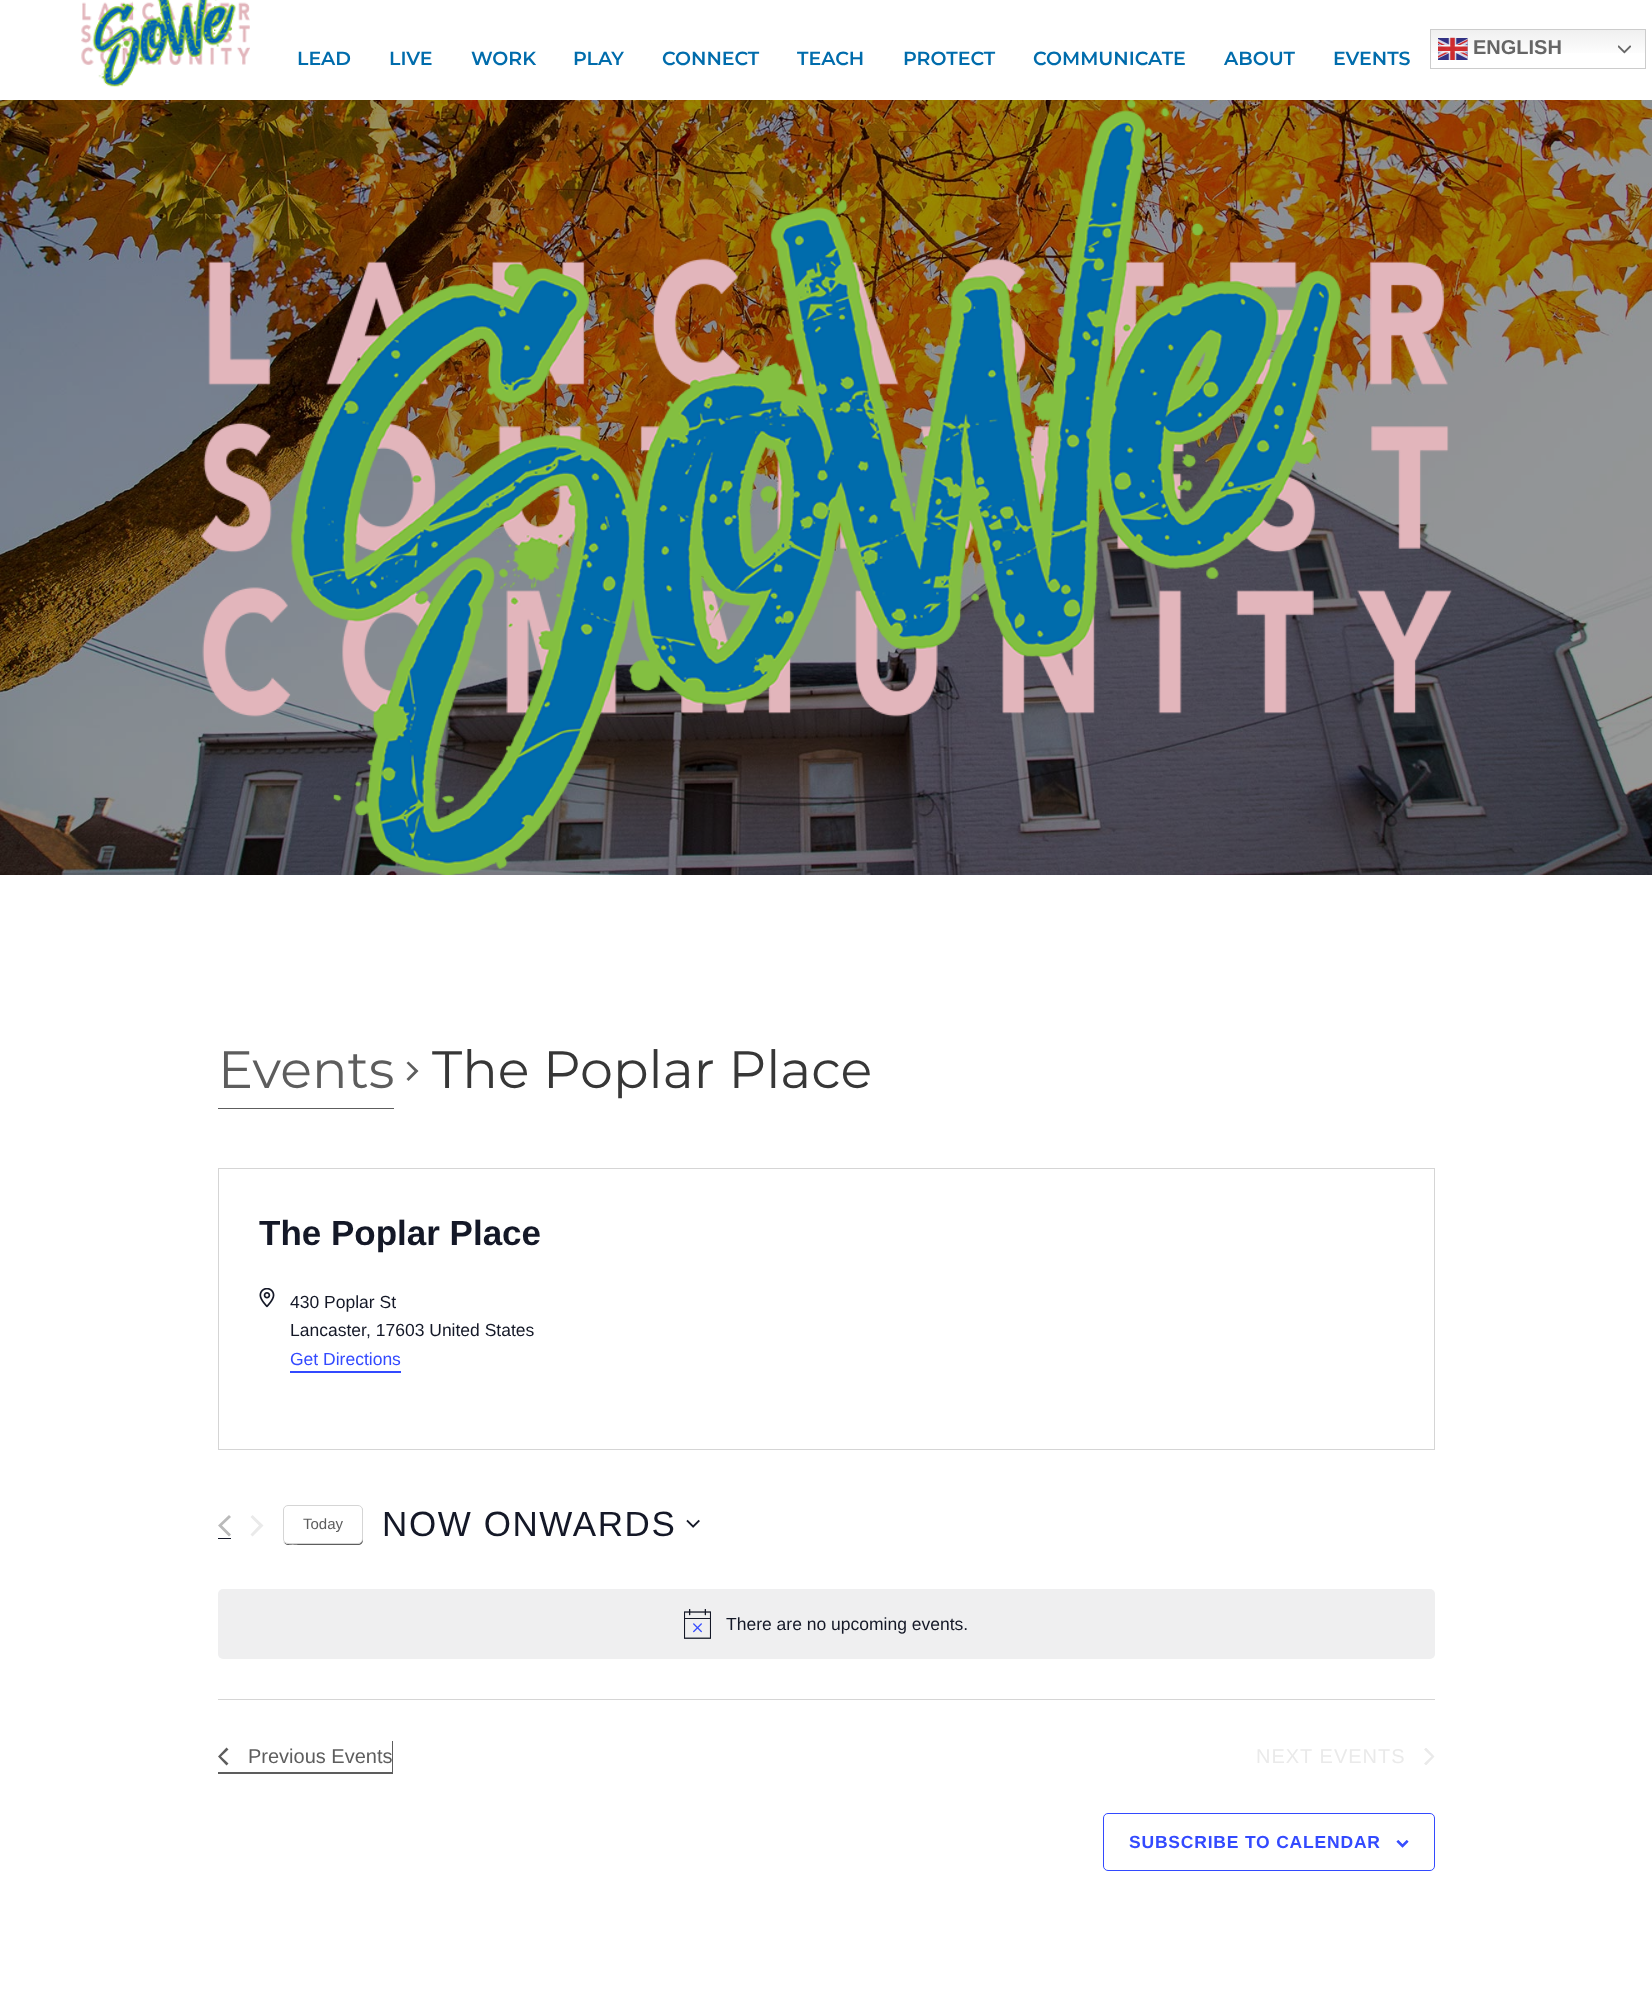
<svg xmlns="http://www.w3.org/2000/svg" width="1652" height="2010">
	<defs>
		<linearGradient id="g1" gradientUnits="userSpaceOnUse" x1="1538" y1="29" x2="1538" y2="69"><stop offset="0" stop-color="#EFEFEF" /><stop offset="0.7" stop-color="#FFFFFF" /></linearGradient>
		<clipPath id="clip1"><rect x="1424" y="1748" width="11" height="17" /></clipPath>
	</defs>
	<rect width="100%" height="100%" fill="#FFFFFF" />
	<image x="81" y="0" width="169" height="87" href="assets/img1.png" />
	<rect x="1431" y="30" width="214" height="23" fill="url(#g1)" />
	<rect x="1430.5" y="29.5" width="215" height="39" fill="none" stroke="#CCCCCC" />
	<image x="1438" y="37" width="30" height="23" href="assets/img2.png" />
	<text x="1473" y="54" font-family="Liberation Sans" font-size="20" font-weight="700" fill="#666666">ENGLISH</text>
	<image x="1618" y="45" width="13" height="9" href="assets/img3.png" />
	<g font-family="Montserrat" font-size="19" font-weight="600" fill="#006CAC">
		<text x="297" y="65">LEAD</text>
		<text x="389" y="65">LIVE</text>
		<text x="471" y="65">WORK</text>
		<text x="573" y="65">PLAY</text>
		<text x="662" y="65">CONNECT</text>
		<text x="797" y="65">TEACH</text>
		<text x="903" y="65">PROTECT</text>
		<text x="1033" y="65">COMMUNICATE</text>
		<text x="1224" y="65">ABOUT</text>
		<text x="1333" y="65">EVENTS</text>
	</g>
	<image x="0" y="100" width="1652" height="775" href="assets/img4.png" />
	<image x="201" y="100" width="1251" height="775" href="assets/img5.png" />
	<path d="M218 1108V1109H394V1036V1108Z" fill="#5D5D5D" />
	<text x="218" y="1088" font-family="Montserrat" font-size="52.5" fill="#5D5D5D">Events</text>
	<path d="M406.5 1063L408.5 1061.5L418.5 1071L408.5 1081L406.5 1079L414.5 1071Z" fill="#5D5D5D" />
	<text x="432" y="1088" font-family="Montserrat" font-size="52.5" fill="#373737">The Poplar Place</text>
	<rect x="218.5" y="1168.5" width="1216" height="281" fill="none" stroke="#D5D5D5" />
	<text x="259" y="1245" font-family="Liberation Sans" font-size="35" font-weight="700" fill="#141827">The Poplar Place</text>
	<image x="259" y="1288" width="16" height="20" href="assets/img6.png" />
	<g font-family="Liberation Sans" font-size="17.5" fill="#141827">
		<text x="290" y="1308">430 Poplar St</text>
		<text x="290" y="1336">Lancaster</text>
		<text x="366" y="1336">, 17603 United States</text>
	</g>
	<text x="290" y="1365" font-family="Liberation Sans" font-size="17.5" fill="#334AFF">Get Directions</text>
	<rect x="290" y="1371" width="111" height="2" fill="#334AFF" />
	<rect x="218" y="1538" width="13" height="1" fill="#141827" />
	<path d="M231 1534.5L229 1536.5L218 1525.5L229 1515L231 1517L222 1525.5Z" fill="#BABABA" />
	<path d="M250.5 1517L252.5 1515L263.5 1525.5L252.5 1536.5L250.5 1534.5L259 1525.5Z" fill="#EAEAEA" />
	<path d="M283 1541C284 1543 286 1545 288 1545H358C361 1545 363 1543 363 1540V1511L362 1508V1529C362 1546 363 1544 346 1544H299C297 1544 286 1546 283 1541Z" fill="#5D5D5D" />
	<rect x="283.5" y="1505.5" width="79" height="38" rx="4.5" fill="#FFFFFF" stroke="#D5D5D5" />
	<text x="303" y="1529" font-family="Liberation Sans" font-size="15" fill="#5D5D5D">Today</text>
	<text x="382" y="1536" font-family="Liberation Sans" font-size="35" letter-spacing="1.6" fill="#141827">NOW ONWARDS</text>
	<image x="686" y="1519" width="14" height="9" href="assets/img7.png" />
	<rect x="218" y="1589" width="1217" height="70" rx="5" fill="#EFEFF0" />
	<image x="684" y="1609" width="27" height="30" href="assets/img8.png" />
	<text x="726" y="1630" font-family="Liberation Sans" font-size="17.5" fill="#141827">There are no upcoming events.</text>
	<rect x="218" y="1699" width="1217" height="1" fill="#D5D5D5" />
	<path d="M218 1772V1774H393V1741H392V1772Z" fill="#5D5D5D" />
	<path d="M228.5 1763.5L226.5 1765.5L218 1756.5L226.5 1747.5L228.5 1749.5L221 1756.5Z" fill="#5D5D5D" />
	<text x="248" y="1763" font-family="Liberation Sans" font-size="20" fill="#5D5D5D">Previous Events</text>
	<text x="1256" y="1763" font-family="Liberation Sans" font-size="20" letter-spacing="1" fill="#EAEAEA">NEXT EVENTS</text>
	<g clip-path="url(#clip1)">
		<path d="M1424 1749.5L1426 1747.5L1434.5 1756.5L1426 1765.5L1424 1763.5L1431.5 1756.5Z" fill="#EAEAEA" />
	</g>
	<rect x="1103.5" y="1813.5" width="331" height="57" rx="4.5" fill="none" stroke="#334AFF" />
	<text x="1129" y="1848" font-family="Liberation Sans" font-size="17.5" font-weight="700" letter-spacing="0.8" fill="#334AFF">SUBSCRIBE TO CALENDAR</text>
	<image x="1396" y="1840" width="13" height="8" href="assets/img9.png" />
</svg>
